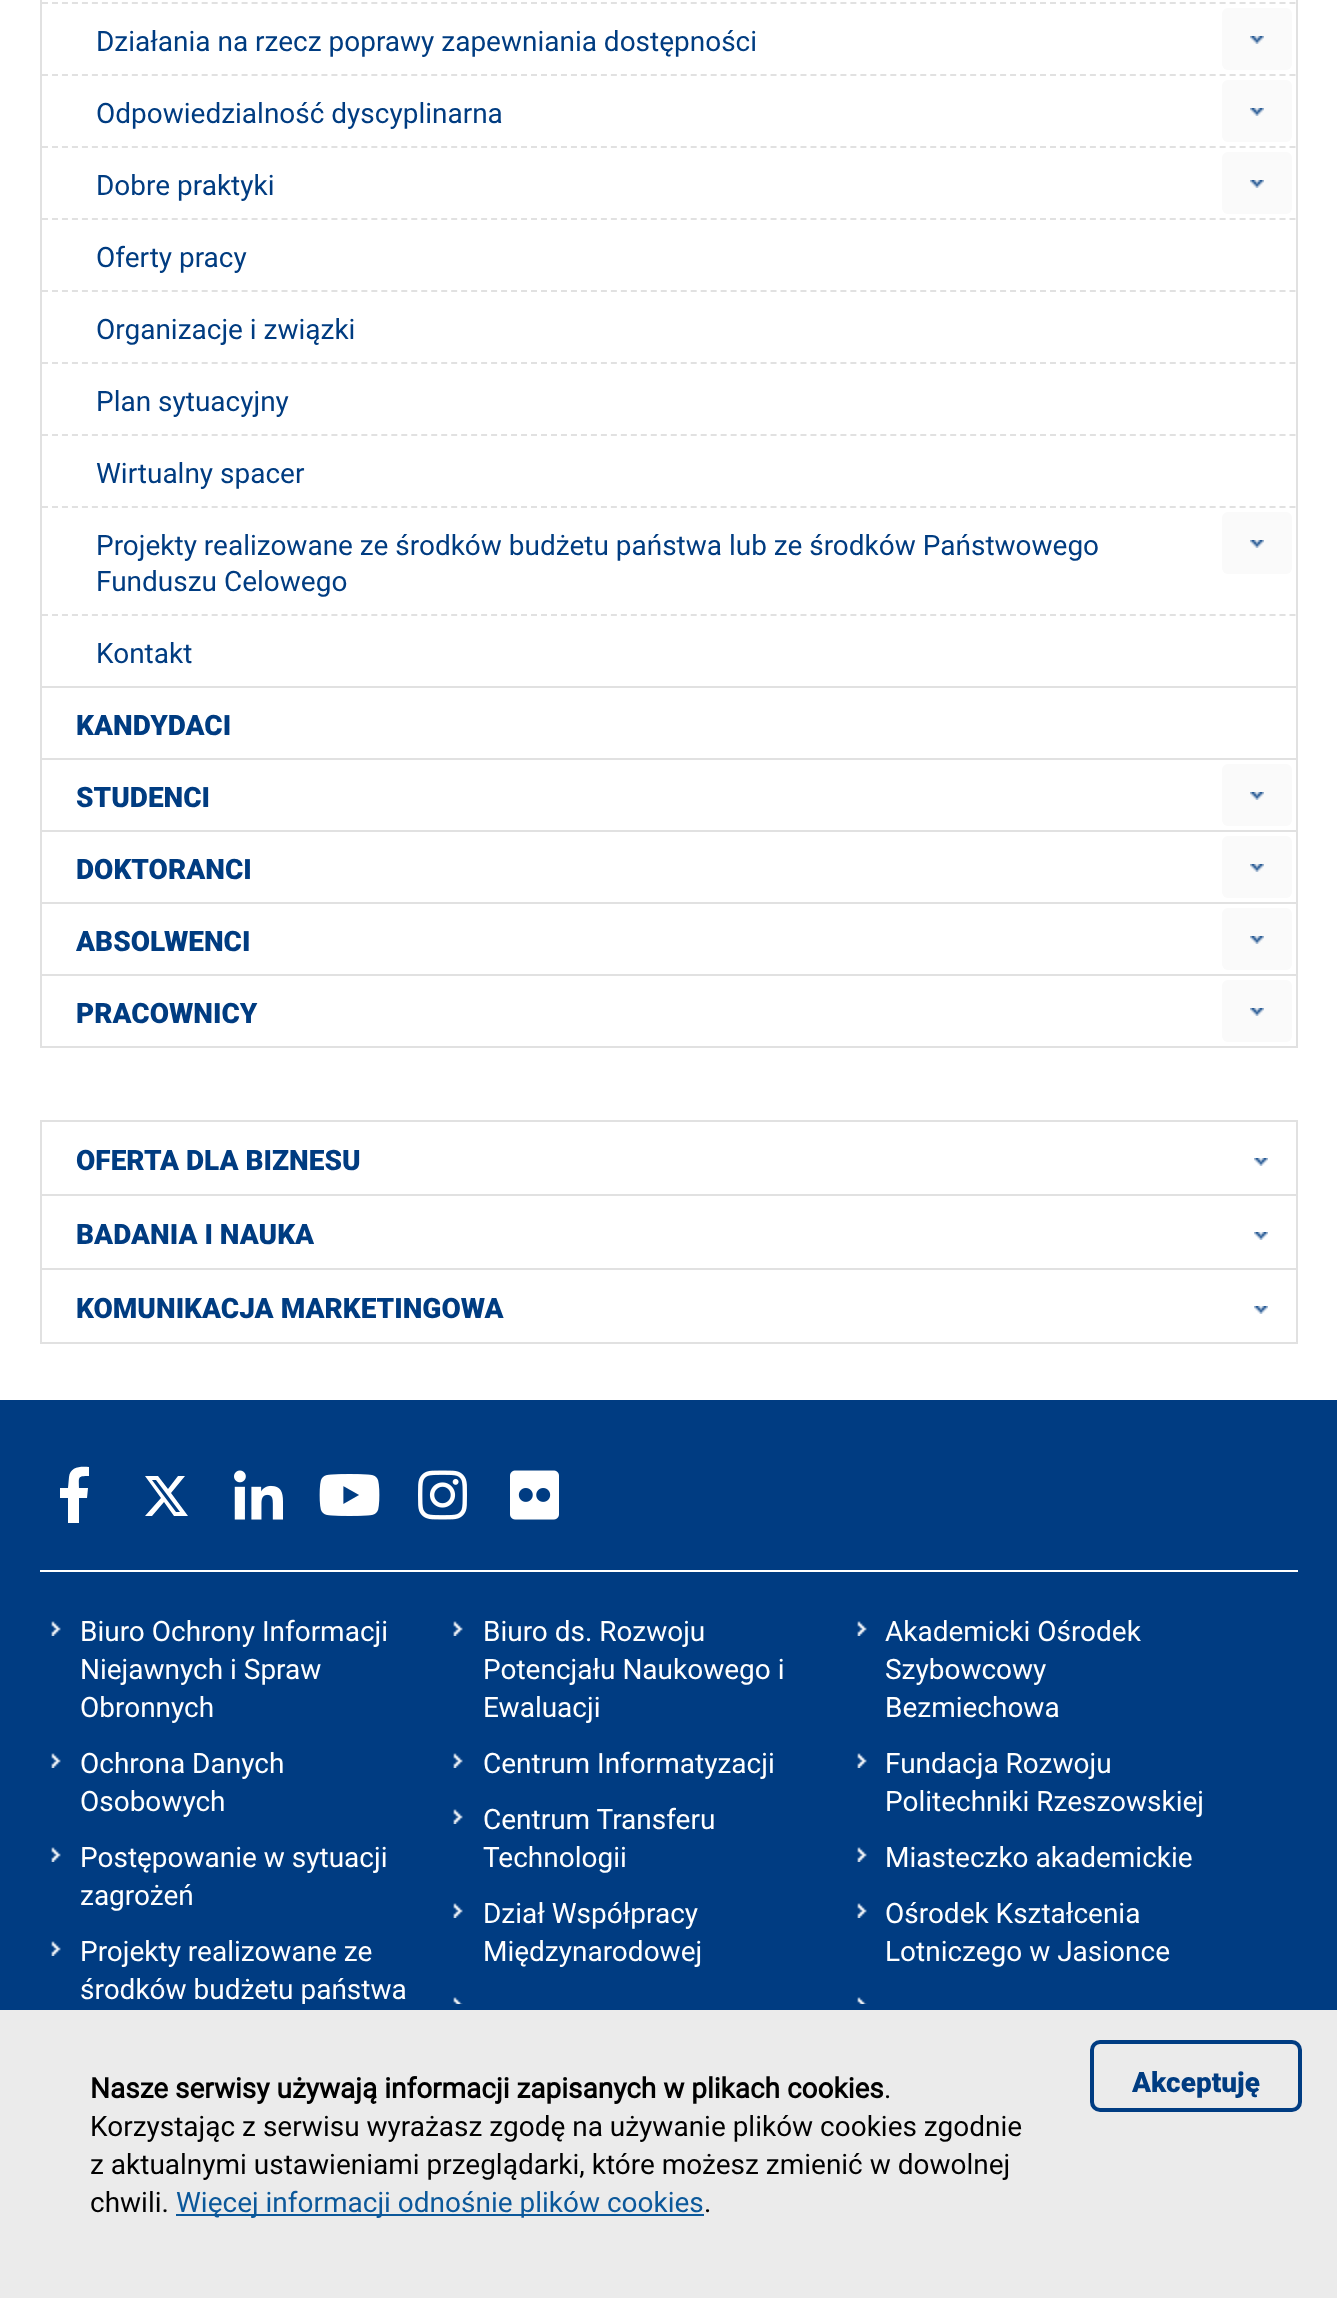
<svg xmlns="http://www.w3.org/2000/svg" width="1337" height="2298">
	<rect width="100%" height="100%" fill="#FFFFFF" />
	<rect x="1296" y="0" width="2" height="1048" fill="#E1E1E1" />
	<rect x="40" y="0" width="2" height="1048" fill="#E1E1E1" />
	<rect x="42" y="686" width="1254" height="2" fill="#E1E1E1" />
	<path d="M42 3H1296" fill="none" stroke="#E1E1E1" stroke-width="2" stroke-dasharray="6 3.98" />
	<text x="96" y="51" font-family="Roboto" font-size="28" fill="#003C81">Działania na rzecz poprawy zapewniania dostępności</text>
	<rect x="1222" y="8" width="70" height="62" rx="6" fill="#FAFAFA" />
	<image x="1250" y="36" width="14" height="8" href="assets/img1.png" />
	<path d="M42 75H1296" fill="none" stroke="#E1E1E1" stroke-width="2" stroke-dasharray="6 3.98" />
	<text x="96" y="123" font-family="Roboto" font-size="28" fill="#003C81">Odpowiedzialność dyscyplinarna</text>
	<rect x="1222" y="80" width="70" height="62" rx="6" fill="#FAFAFA" />
	<image x="1250" y="108" width="14" height="8" href="assets/img1.png" />
	<path d="M42 147H1296" fill="none" stroke="#E1E1E1" stroke-width="2" stroke-dasharray="6 3.98" />
	<text x="96" y="195" font-family="Roboto" font-size="28" fill="#003C81">Dobre praktyki</text>
	<rect x="1222" y="152" width="70" height="62" rx="6" fill="#FAFAFA" />
	<image x="1250" y="180" width="14" height="8" href="assets/img1.png" />
	<path d="M42 219H1296" fill="none" stroke="#E1E1E1" stroke-width="2" stroke-dasharray="6 3.98" />
	<text x="96" y="267" font-family="Roboto" font-size="28" fill="#003C81">Oferty pracy</text>
	<path d="M42 291H1296" fill="none" stroke="#E1E1E1" stroke-width="2" stroke-dasharray="6 3.98" />
	<text x="96" y="339" font-family="Roboto" font-size="28" fill="#003C81">Organizacje i związki</text>
	<path d="M42 363H1296" fill="none" stroke="#E1E1E1" stroke-width="2" stroke-dasharray="6 3.98" />
	<text x="96" y="411" font-family="Roboto" font-size="28" fill="#003C81">Plan sytuacyjny</text>
	<path d="M42 435H1296" fill="none" stroke="#E1E1E1" stroke-width="2" stroke-dasharray="6 3.98" />
	<text x="96" y="483" font-family="Roboto" font-size="28" fill="#003C81">Wirtualny spacer</text>
	<path d="M42 507H1296" fill="none" stroke="#E1E1E1" stroke-width="2" stroke-dasharray="6 3.98" />
	<g font-family="Roboto" font-size="28" fill="#003C81">
		<text x="96" y="555">Projekty realizowane ze środków budżetu państwa lub ze środków Państwowego</text>
		<text x="96" y="591">Funduszu Celowego</text>
	</g>
	<rect x="1222" y="512" width="70" height="62" rx="6" fill="#FAFAFA" />
	<image x="1250" y="540" width="14" height="8" href="assets/img1.png" />
	<path d="M42 615H1296" fill="none" stroke="#E1E1E1" stroke-width="2" stroke-dasharray="6 3.98" />
	<text x="96" y="663" font-family="Roboto" font-size="28" fill="#003C81">Kontakt</text>
	<rect x="42" y="758" width="1254" height="2" fill="#E1E1E1" />
	<text x="76" y="735" font-family="Roboto" font-size="28" font-weight="900" fill="#003C81">KANDYDACI</text>
	<rect x="42" y="830" width="1254" height="2" fill="#E1E1E1" />
	<text x="76" y="807" font-family="Roboto" font-size="28" font-weight="900" fill="#003C81">STUDENCI</text>
	<rect x="1222" y="764" width="70" height="62" rx="6" fill="#FAFAFA" />
	<image x="1250" y="792" width="14" height="8" href="assets/img1.png" />
	<rect x="42" y="902" width="1254" height="2" fill="#E1E1E1" />
	<text x="76" y="879" font-family="Roboto" font-size="28" font-weight="900" fill="#003C81">DOKTORANCI</text>
	<rect x="1222" y="836" width="70" height="62" rx="6" fill="#FAFAFA" />
	<image x="1250" y="864" width="14" height="8" href="assets/img1.png" />
	<rect x="42" y="974" width="1254" height="2" fill="#E1E1E1" />
	<text x="76" y="951" font-family="Roboto" font-size="28" font-weight="900" fill="#003C81">ABSOLWENCI</text>
	<rect x="1222" y="908" width="70" height="62" rx="6" fill="#FAFAFA" />
	<image x="1250" y="936" width="14" height="8" href="assets/img1.png" />
	<rect x="42" y="1046" width="1254" height="2" fill="#E1E1E1" />
	<text x="76" y="1023" font-family="Roboto" font-size="28" font-weight="900" fill="#003C81">PRACOWNICY</text>
	<rect x="1222" y="980" width="70" height="62" rx="6" fill="#FAFAFA" />
	<image x="1250" y="1008" width="14" height="8" href="assets/img1.png" />
	<rect x="40" y="1120" width="1258" height="2" fill="#E1E1E1" />
	<rect x="1296" y="1120" width="2" height="224" fill="#E1E1E1" />
	<rect x="40" y="1120" width="2" height="224" fill="#E1E1E1" />
	<rect x="42" y="1194" width="1254" height="2" fill="#E1E1E1" />
	<text x="76" y="1170" font-family="Roboto" font-size="28" font-weight="900" fill="#003C81">OFERTA DLA BIZNESU</text>
	<image x="1254" y="1158" width="14" height="8" href="assets/img2.png" />
	<rect x="42" y="1268" width="1254" height="2" fill="#E1E1E1" />
	<text x="76" y="1244" font-family="Roboto" font-size="28" font-weight="900" fill="#003C81">BADANIA I NAUKA</text>
	<image x="1254" y="1232" width="14" height="8" href="assets/img2.png" />
	<rect x="42" y="1342" width="1254" height="2" fill="#E1E1E1" />
	<text x="76" y="1318" font-family="Roboto" font-size="28" font-weight="900" fill="#003C81">KOMUNIKACJA MARKETINGOWA</text>
	<image x="1254" y="1306" width="14" height="8" href="assets/img2.png" />
	<rect x="0" y="1400" width="1337" height="604" fill="#003C82" />
	<path d="M68 1523V1498H60V1488H68L69 1477C70 1467 80 1466 89 1467V1476C77 1476 79 1477 79 1488H88L87 1498H79V1523Z" fill="#FFFFFF" />
	<path d="M178 1476H185L171 1493L188 1516H174L164 1502L152 1516H145L161 1498L145 1476H158L168 1489ZM176 1512H180L156 1480H152Z" fill="#FFFFFF" />
	<image x="234" y="1470" width="49" height="50" href="assets/img3.png" />
	<image x="319" y="1474" width="61" height="42" href="assets/img4.png" />
	<image x="418" y="1470" width="49" height="50" href="assets/img5.png" />
	<image x="510" y="1470" width="49" height="50" href="assets/img6.png" />
	<rect x="40" y="1570" width="1258" height="2" fill="#FFFFFF" />
	<image x="51" y="1621" width="10" height="15" href="assets/img7.png" />
	<g font-family="Roboto" font-size="28" fill="#FFFFFF">
		<text x="80" y="1641">Biuro Ochrony Informacji</text>
		<text x="80" y="1679">Niejawnych i Spraw</text>
		<text x="80" y="1717">Obronnych</text>
	</g>
	<image x="51" y="1753" width="10" height="15" href="assets/img7.png" />
	<g font-family="Roboto" font-size="28" fill="#FFFFFF">
		<text x="80" y="1773">Ochrona Danych</text>
		<text x="80" y="1811">Osobowych</text>
	</g>
	<image x="51" y="1847" width="10" height="15" href="assets/img7.png" />
	<g font-family="Roboto" font-size="28" fill="#FFFFFF">
		<text x="80" y="1867">Postępowanie w sytuacji</text>
		<text x="80" y="1905">zagrożeń</text>
	</g>
	<image x="51" y="1941" width="10" height="15" href="assets/img7.png" />
	<g font-family="Roboto" font-size="28" fill="#FFFFFF">
		<text x="80" y="1961">Projekty realizowane ze</text>
		<text x="80" y="1999">środków budżetu państwa</text>
	</g>
	<image x="453" y="1621" width="10" height="15" href="assets/img7.png" />
	<g font-family="Roboto" font-size="28" fill="#FFFFFF">
		<text x="483" y="1641">Biuro ds. Rozwoju</text>
		<text x="483" y="1679">Potencjału Naukowego i</text>
		<text x="483" y="1717">Ewaluacji</text>
	</g>
	<image x="453" y="1753" width="10" height="15" href="assets/img7.png" />
	<text x="483" y="1773" font-family="Roboto" font-size="28" fill="#FFFFFF">Centrum Informatyzacji</text>
	<image x="453" y="1809" width="10" height="15" href="assets/img7.png" />
	<g font-family="Roboto" font-size="28" fill="#FFFFFF">
		<text x="483" y="1829">Centrum Transferu</text>
		<text x="483" y="1867">Technologii</text>
	</g>
	<image x="453" y="1903" width="10" height="15" href="assets/img7.png" />
	<g font-family="Roboto" font-size="28" fill="#FFFFFF">
		<text x="483" y="1923">Dział Współpracy</text>
		<text x="483" y="1961">Międzynarodowej</text>
	</g>
	<image x="453" y="1997" width="10" height="7" href="assets/img8.png" />
	<image x="857" y="1621" width="10" height="15" href="assets/img7.png" />
	<g font-family="Roboto" font-size="28" fill="#FFFFFF">
		<text x="885" y="1641">Akademicki Ośrodek</text>
		<text x="885" y="1679">Szybowcowy</text>
		<text x="885" y="1717">Bezmiechowa</text>
	</g>
	<image x="857" y="1753" width="10" height="15" href="assets/img7.png" />
	<g font-family="Roboto" font-size="28" fill="#FFFFFF">
		<text x="885" y="1773">Fundacja Rozwoju</text>
		<text x="885" y="1811">Politechniki Rzeszowskiej</text>
	</g>
	<image x="857" y="1847" width="10" height="15" href="assets/img7.png" />
	<text x="885" y="1867" font-family="Roboto" font-size="28" fill="#FFFFFF">Miasteczko akademickie</text>
	<image x="857" y="1903" width="10" height="15" href="assets/img7.png" />
	<g font-family="Roboto" font-size="28" fill="#FFFFFF">
		<text x="885" y="1923">Ośrodek Kształcenia</text>
		<text x="885" y="1961">Lotniczego w Jasionce</text>
	</g>
	<image x="857" y="1997" width="10" height="7" href="assets/img8.png" />
	<rect x="0" y="2010" width="1337" height="288" fill="#EBEBEB" />
	<rect x="0" y="2004" width="1337" height="6" fill="#003C82" />
	<text x="90" y="2098" font-family="Roboto" font-size="28" font-weight="700" fill="#000000">Nasze serwisy używają informacji zapisanych w plikach cookies</text>
	<g font-family="Roboto" font-size="28" fill="#000000">
		<text x="884" y="2098">.</text>
		<text x="90" y="2136">Korzystając z serwisu wyrażasz zgodę na używanie plików cookies zgodnie</text>
		<text x="90" y="2174">z aktualnymi ustawieniami przeglądarki, które możesz zmienić w dowolnej</text>
		<text x="90" y="2212">chwili.</text>
	</g>
	<rect x="176" y="2214" width="528" height="2" fill="#0B589A" />
	<text x="176" y="2212" font-family="Roboto" font-size="28" fill="#0B589A">Więcej informacji odnośnie plików cookies</text>
	<text x="704" y="2212" font-family="Roboto" font-size="28" fill="#000000">.</text>
	<rect x="1092" y="2042" width="208" height="68" rx="8" fill="none" stroke="#003C82" stroke-width="4" />
	<text x="1132" y="2092" font-family="Roboto" font-size="28" font-weight="900" fill="#003C81">Akceptuję</text>
</svg>
